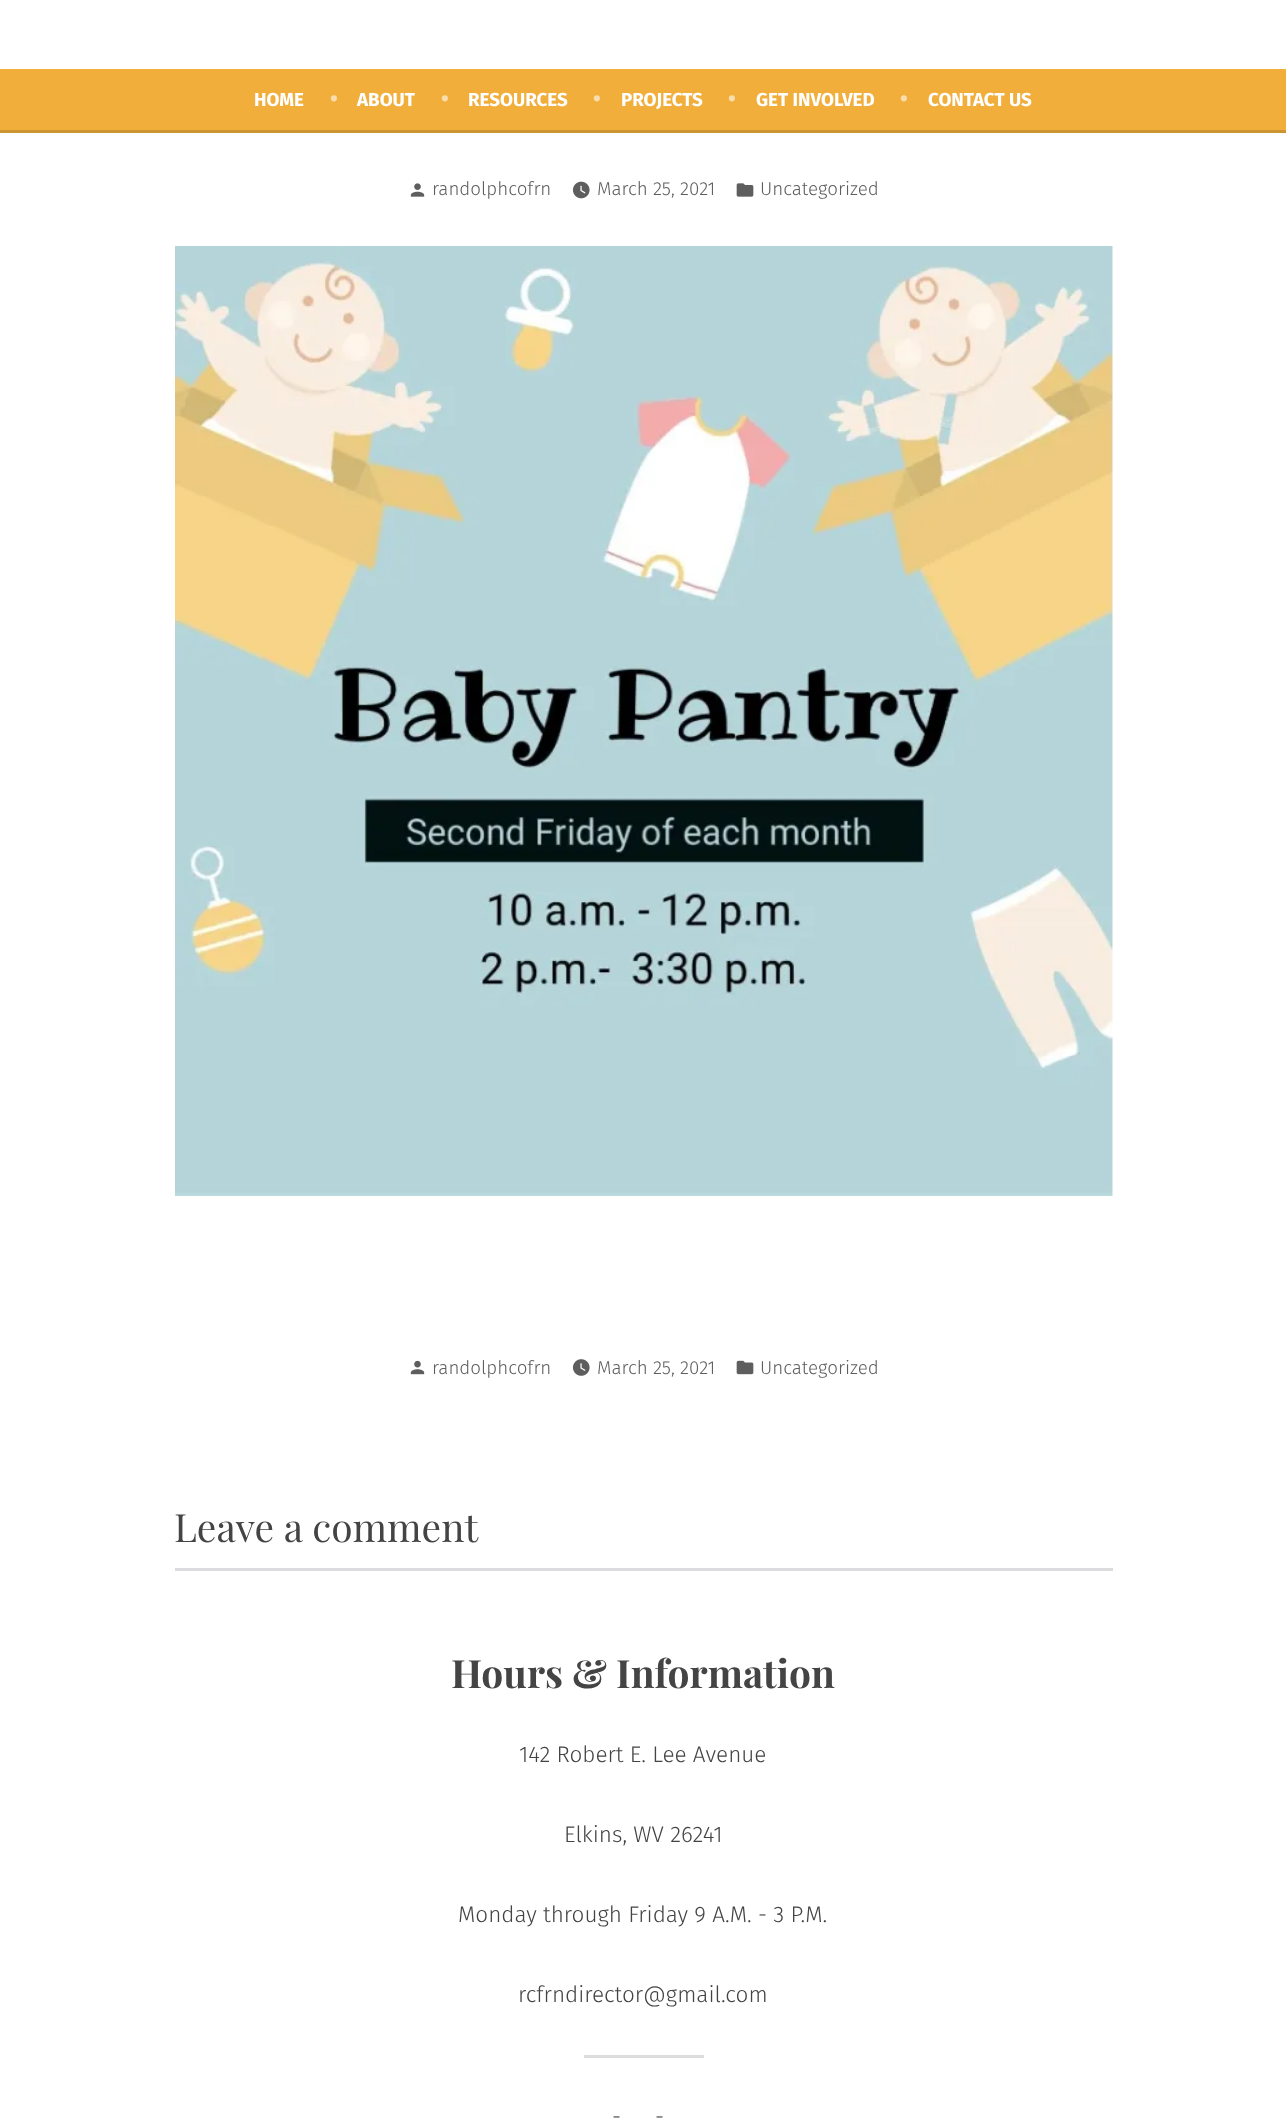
<svg xmlns="http://www.w3.org/2000/svg" width="1286" height="2119">
	<rect width="100%" height="100%" fill="#FFFFFF" />
	<rect x="0" y="69" width="1286" height="61" fill="#F1AE3B" />
	<rect x="0" y="130" width="1286" height="3" fill="#CD9432" />
	<text x="254" y="106" font-family="Fira Sans" font-size="18.75" font-weight="700" fill="#FFFFFF">HOME</text>
	<text x="330" y="106" font-family="Fira Sans" font-size="22.5" font-weight="700" fill="#F9DDAD">•</text>
	<text x="357" y="106" font-family="Fira Sans" font-size="18.75" font-weight="700" fill="#FFFFFF">ABOUT</text>
	<text x="441" y="106" font-family="Fira Sans" font-size="22.5" font-weight="700" fill="#F9DDAD">•</text>
	<text x="468" y="106" font-family="Fira Sans" font-size="18.75" font-weight="700" fill="#FFFFFF">RESOURCES</text>
	<text x="593" y="106" font-family="Fira Sans" font-size="22.5" font-weight="700" fill="#F9DDAD">•</text>
	<text x="621" y="106" font-family="Fira Sans" font-size="18.75" font-weight="700" fill="#FFFFFF">PROJECTS</text>
	<text x="728" y="106" font-family="Fira Sans" font-size="22.5" font-weight="700" fill="#F9DDAD">•</text>
	<text x="756" y="106" font-family="Fira Sans" font-size="18.75" font-weight="700" fill="#FFFFFF">GET INVOLVED</text>
	<text x="900" y="106" font-family="Fira Sans" font-size="22.5" font-weight="700" fill="#F9DDAD">•</text>
	<text x="928" y="106" font-family="Fira Sans" font-size="18.75" font-weight="700" fill="#FFFFFF">CONTACT US</text>
	<image x="410" y="183" width="15" height="14" href="assets/img1.png" />
	<text x="432" y="195" font-family="Fira Sans" font-size="18.75" font-weight="300" fill="#5E5E5E">randolphcofrn</text>
	<image x="572" y="181" width="18" height="18" href="assets/img2.png" />
	<text x="597" y="195" font-family="Fira Sans" font-size="18.75" font-weight="300" fill="#5E5E5E">March 25, 2021</text>
	<image x="736" y="183" width="18" height="14" href="assets/img3.png" />
	<text x="760" y="195" font-family="Fira Sans" font-size="18.75" font-weight="300" fill="#5E5E5E">Uncategorized</text>
	<image x="175" y="246" width="938" height="950" href="assets/img4.png" />
	<image x="410" y="1360" width="15" height="15" href="assets/img5.png" />
	<text x="432" y="1374" font-family="Fira Sans" font-size="18.75" font-weight="300" fill="#5E5E5E">randolphcofrn</text>
	<image x="572" y="1359" width="18" height="17" href="assets/img6.png" />
	<text x="597" y="1374" font-family="Fira Sans" font-size="18.75" font-weight="300" fill="#5E5E5E">March 25, 2021</text>
	<image x="736" y="1360" width="18" height="15" href="assets/img7.png" />
	<text x="760" y="1374" font-family="Fira Sans" font-size="18.75" font-weight="300" fill="#5E5E5E">Uncategorized</text>
	<text x="174" y="1542" font-family="Playfair Display" font-size="38.9" fill="#444444">Leave a comment</text>
	<rect x="175" y="1568" width="938" height="3" fill="#DCDCDE" />
	<text x="451" y="1688" font-family="Playfair Display" font-size="38.9" font-weight="700" fill="#444444">Hours &amp; Information</text>
	<g font-family="Fira Sans" font-size="22.5" font-weight="300" fill="#444444">
		<text x="519" y="1762">142 Robert E. Lee Avenue</text>
		<text x="564" y="1842">Elkins, WV 26241</text>
		<text x="458" y="1922">Monday through Friday 9 A.M. - 3 P.M.</text>
		<text x="518" y="2002">rcfrndirector@gmail.com</text>
	</g>
	<rect x="584" y="2055" width="120" height="3" fill="#DDDDDD" />
	<g font-family="Fira Sans" font-size="22.5" font-weight="300" fill="#444444">
		<text x="612" y="2124">-</text>
		<text x="655" y="2124">-</text>
	</g>
</svg>
